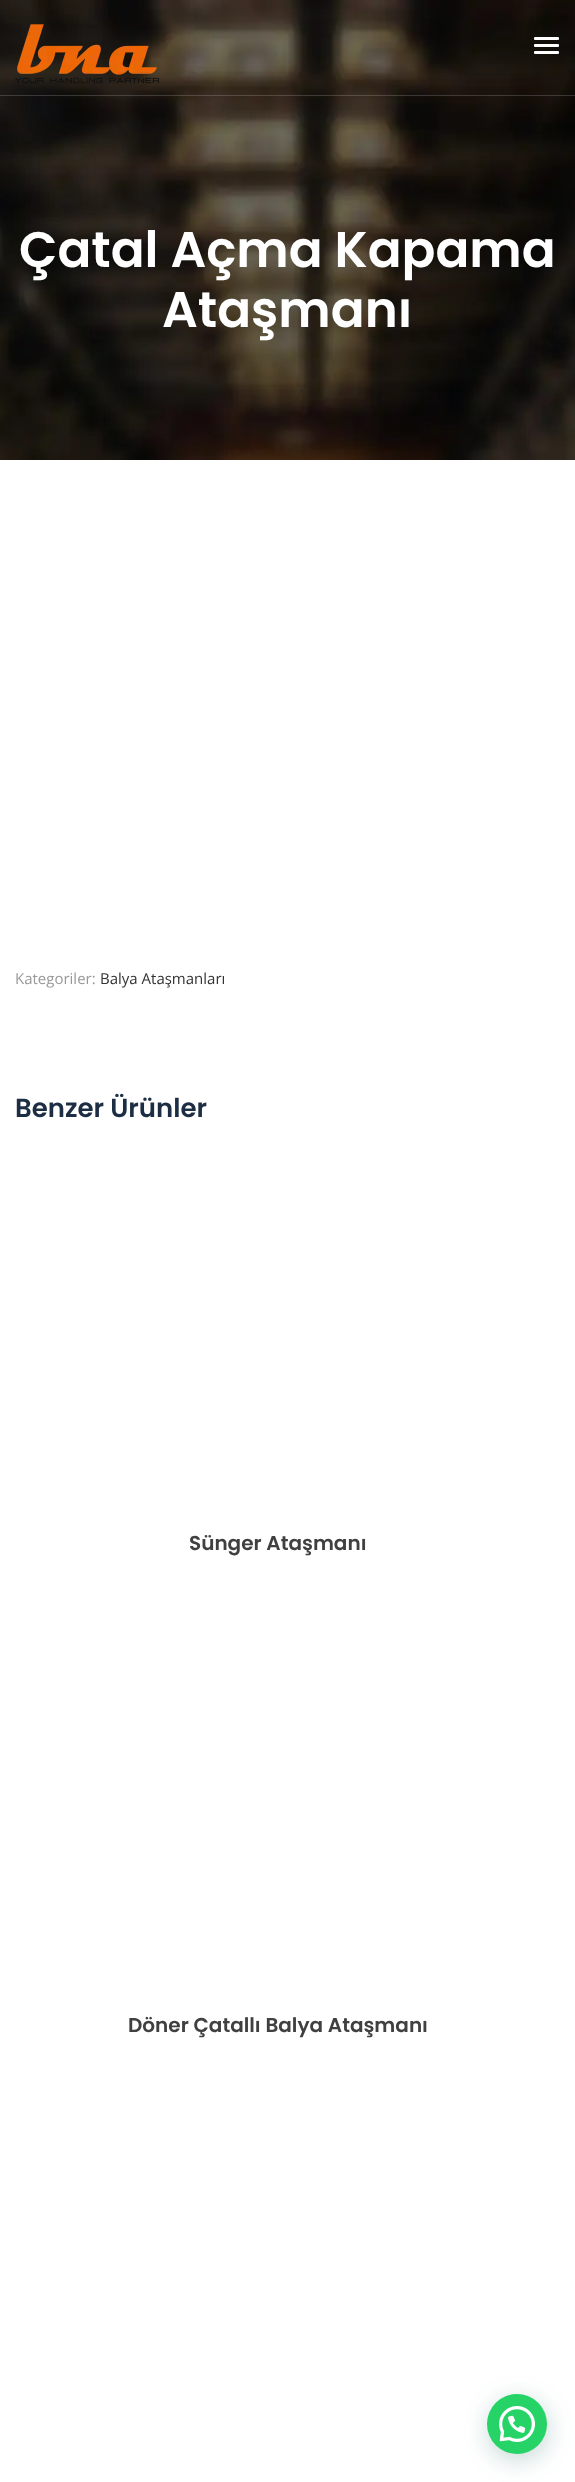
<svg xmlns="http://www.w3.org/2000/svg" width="575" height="2482">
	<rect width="100%" height="100%" fill="#FFFFFF" />
	<image x="0" y="0" width="575" height="460" href="assets/img2.png" />
	<rect x="0" y="95" width="575" height="1" fill="#FFFFFF" fill-opacity="0.17" />
	<image x="15" y="24" width="144" height="60" href="assets/img1.png" />
	<rect x="534" y="37" width="25" height="3" rx="1" fill="#FFFFFF" />
	<rect x="534" y="44" width="25" height="3" rx="1" fill="#FFFFFF" />
	<rect x="534" y="51" width="25" height="3" rx="1" fill="#FFFFFF" />
	<g font-family="Poppins" font-size="50" font-weight="600" fill="#FFFFFF">
		<text x="19" y="267">Çatal Açma Kapama</text>
		<text x="162" y="327">Ataşmanı</text>
	</g>
	<text x="15" y="984" font-family="Open Sans" font-size="15" fill="#999999">Kategoriler:</text>
	<text x="100" y="984" font-family="Open Sans" font-size="15" fill="#333333">Balya Ataşmanları</text>
	<text x="15" y="1117" font-family="Poppins" font-size="26" font-weight="600" fill="#1D2E44">Benzer Ürünler</text>
	<g font-family="Poppins" font-size="20" font-weight="600" fill="#404040">
		<text x="189" y="1550">Sünger Ataşmanı</text>
		<text x="128" y="2032">Döner Çatallı Balya Ataşmanı</text>
	</g>
	<rect x="488" y="2400" width="60" height="60" rx="30" fill="#075E54" fill-opacity="0.24" filter="blur(12px)" />
	<circle cx="517" cy="2424" r="30" fill="#25D366" />
	<image x="499" y="2406" width="36" height="36" href="assets/img3.png" />
</svg>
